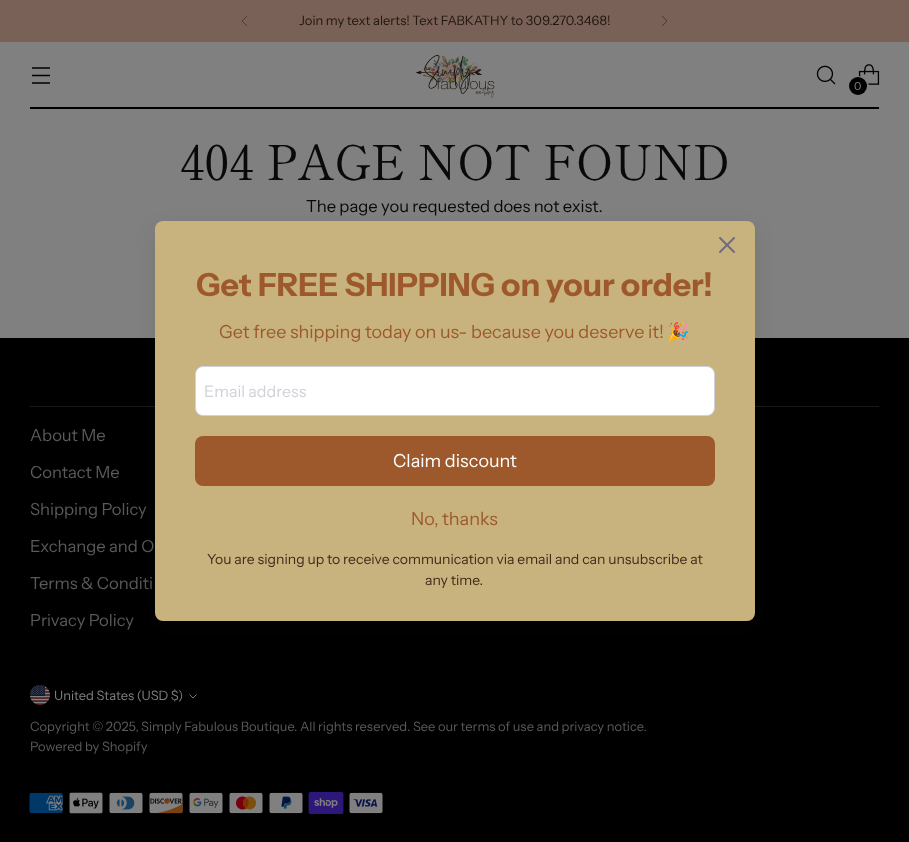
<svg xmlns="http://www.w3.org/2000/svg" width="909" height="842">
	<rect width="100%" height="100%" fill="#808080" />
	<rect x="0" y="0" width="909" height="42" fill="#7A6158" />
	<path d="M247 16L242 21L247 26" fill="none" stroke="#4D3B33" />
	<path d="M662 26L667 21L662 16" fill="none" stroke="#4D3B33" />
	<text x="299" y="25" font-family="Instrument Sans" font-size="12.95" fill="#20160E">Join my text alerts! Text FABKATHY to 309.270.3468!</text>
	<rect x="30" y="107" width="849" height="2" fill="#000000" />
	<path d="M32 75.5H50M32 68H50M32 83H50" fill="none" stroke="#000000" stroke-width="1.3" />
	<image x="416" y="54" width="79" height="44" href="assets/img1.png" />
	<image x="816" y="65" width="20" height="20" href="assets/img2.png" />
	<image x="858" y="64" width="22" height="21" href="assets/img3.png" />
	<circle cx="858.5" cy="86.5" r="9.5" fill="none" stroke="#808080" stroke-width="2" />
	<circle cx="858" cy="86" r="9" fill="#000000" />
	<text x="854" y="90" font-family="Instrument Sans" font-size="11" fill="#808080">0</text>
	<text x="180" y="180" font-family="Shippori Mincho" font-size="48.25" fill="#090909">404 PAGE NOT FOUND</text>
	<text x="306" y="212" font-family="Instrument Sans" font-size="16.6" fill="#090909">The page you requested does not exist.</text>
	<rect x="0" y="338" width="909" height="504" fill="#000000" />
	<rect x="30" y="406" width="849" height="1" fill="#1A1A1A" />
	<g font-family="Instrument Sans" font-size="16.6" fill="#5A5A5A">
		<text x="30" y="441">About Me</text>
		<text x="30" y="478">Contact Me</text>
		<text x="30" y="515">Shipping Policy</text>
		<text x="30" y="552">Exchange and O</text>
		<text x="30" y="589">Terms &amp; Conditi</text>
		<text x="30" y="626">Privacy Policy</text>
	</g>
	<image x="30" y="685" width="20" height="20" href="assets/img4.png" />
	<text x="54" y="700" font-family="Instrument Sans" font-size="12.95" fill="#808080">United States (USD $)</text>
	<path d="M189.5 694.5L193 698L196.5 694.5" fill="none" stroke="#808080" stroke-width="0.9" />
	<g font-family="Instrument Sans" font-size="12.95" fill="#5A5A5A">
		<text x="30" y="731">Copyright © 2025,</text>
		<text x="141" y="731">Simply Fabulous Boutique</text>
		<text x="294" y="731">. All rights reserved. See our terms of use and privacy notice.</text>
		<text x="30" y="751">Powered by Shopify</text>
	</g>
	<image x="29" y="792" width="34" height="22" href="assets/img5.png" />
	<image x="69" y="792" width="34" height="22" href="assets/img6.png" />
	<image x="109" y="792" width="34" height="22" href="assets/img7.png" />
	<image x="149" y="792" width="34" height="22" href="assets/img8.png" />
	<image x="189" y="792" width="34" height="22" href="assets/img9.png" />
	<image x="229" y="792" width="34" height="22" href="assets/img10.png" />
	<image x="269" y="792" width="34" height="22" href="assets/img11.png" />
	<image x="308" y="792" width="36" height="22" href="assets/img12.png" />
	<image x="349" y="792" width="34" height="22" href="assets/img13.png" />
	<rect x="155" y="229" width="600" height="400" rx="8" fill="#121127" fill-opacity="0.1" filter="blur(10px)" />
	<rect x="155" y="221" width="600" height="400" rx="8" fill="#C8B37E" />
	<image x="719" y="237" width="16" height="16" href="assets/img14.png" />
	<text x="196" y="296" font-family="Instrument Sans" font-size="32" font-weight="700" fill="#9D592C">Get FREE SHIPPING on your order!</text>
	<text x="219" y="338" font-family="Instrument Sans" font-size="18" fill="#9D592C">Get free shipping today on us- because you deserve it!</text>
	<text x="667" y="338" font-family="Noto Color Emoji" font-size="18" fill="#9D592C">🎉</text>
	<rect x="195.5" y="366.5" width="519" height="49" rx="7.5" fill="#FFFFFF" stroke="#D1D1DB" />
	<text x="204" y="397" font-family="Instrument Sans" font-size="16" fill="#D1D1DB">Email address</text>
	<rect x="195" y="436" width="520" height="50" rx="8" fill="#9D592C" />
	<text x="393" y="467" font-family="Instrument Sans" font-size="18" fill="#FFFFFF">Claim discount</text>
	<text x="411" y="525" font-family="Instrument Sans" font-size="18" fill="#9D592C">No, thanks</text>
	<g font-family="Instrument Sans" font-size="14" fill="#402B1C">
		<text x="207" y="564">You are signing up to receive communication via email and can unsubscribe at</text>
		<text x="425" y="585">any time.</text>
	</g>
</svg>
